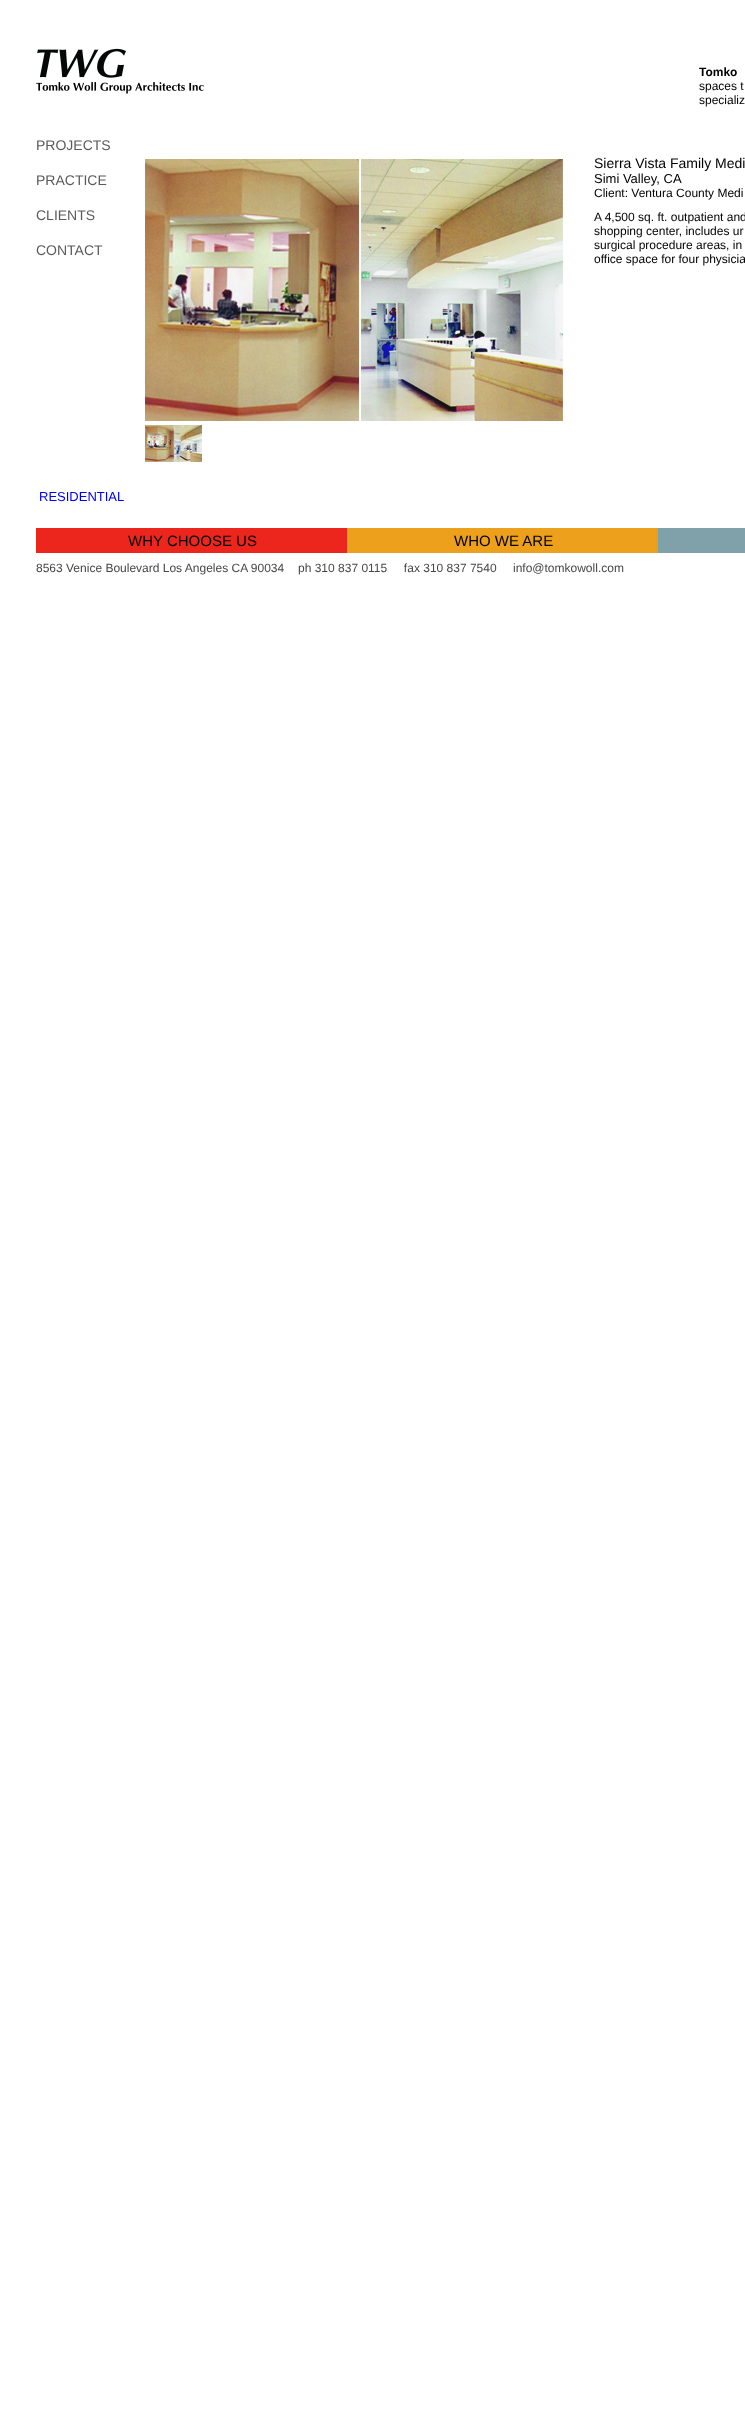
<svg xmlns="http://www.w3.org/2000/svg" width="745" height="2428">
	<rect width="100%" height="100%" fill="#FFFFFF" />
	<image x="36" y="48" width="168" height="46" href="assets/img1.png" />
	<text x="699" y="76" font-family="Liberation Sans" font-size="12" font-weight="700" fill="#000000">Tomko</text>
	<g font-family="Liberation Sans" font-size="12" fill="#000000">
		<text x="699" y="90">spaces t</text>
		<text x="699" y="104">specializ</text>
	</g>
	<g font-family="Liberation Sans" font-size="14" fill="#5A5A5A">
		<text x="36" y="150">PROJECTS</text>
		<text x="36" y="185">PRACTICE</text>
		<text x="36" y="220">CLIENTS</text>
		<text x="36" y="255">CONTACT</text>
	</g>
	<image x="145" y="159" width="418" height="262" href="assets/img2.png" />
	<image x="145" y="425" width="57" height="37" href="assets/img3.png" />
	<text x="594" y="168" font-family="Liberation Sans" font-size="14" fill="#000000">Sierra Vista Family Medi</text>
	<text x="594" y="183" font-family="Liberation Sans" font-size="13" fill="#000000">Simi Valley, CA</text>
	<g font-family="Liberation Sans" font-size="12" fill="#000000">
		<text x="594" y="197">Client: Ventura County Medi</text>
		<text x="594" y="221">A 4,500 sq. ft. outpatient and</text>
		<text x="594" y="235">shopping center, includes ur</text>
		<text x="594" y="249">surgical procedure areas, in</text>
		<text x="594" y="263">office space for four physicia</text>
	</g>
	<text x="39" y="501" font-family="Liberation Sans" font-size="13" fill="#0000EE">RESIDENTIAL</text>
	<rect x="36" y="528" width="311" height="25" fill="#EC261C" />
	<text x="128" y="546" font-family="Liberation Sans" font-size="15" fill="#000000">WHY CHOOSE US</text>
	<rect x="347" y="528" width="311" height="25" fill="#ECA01C" />
	<text x="454" y="546" font-family="Liberation Sans" font-size="15" fill="#000000">WHO WE ARE</text>
	<rect x="658" y="528" width="87" height="25" fill="#80A1A9" />
	<g font-family="Liberation Sans" font-size="12" fill="#464646">
		<text x="36" y="572">8563 Venice Boulevard Los Angeles CA 90034</text>
		<text x="298" y="572" xml:space="preserve">ph 310 837 0115     fax 310 837 7540</text>
		<text x="513" y="572">info@tomkowoll.com</text>
	</g>
</svg>
